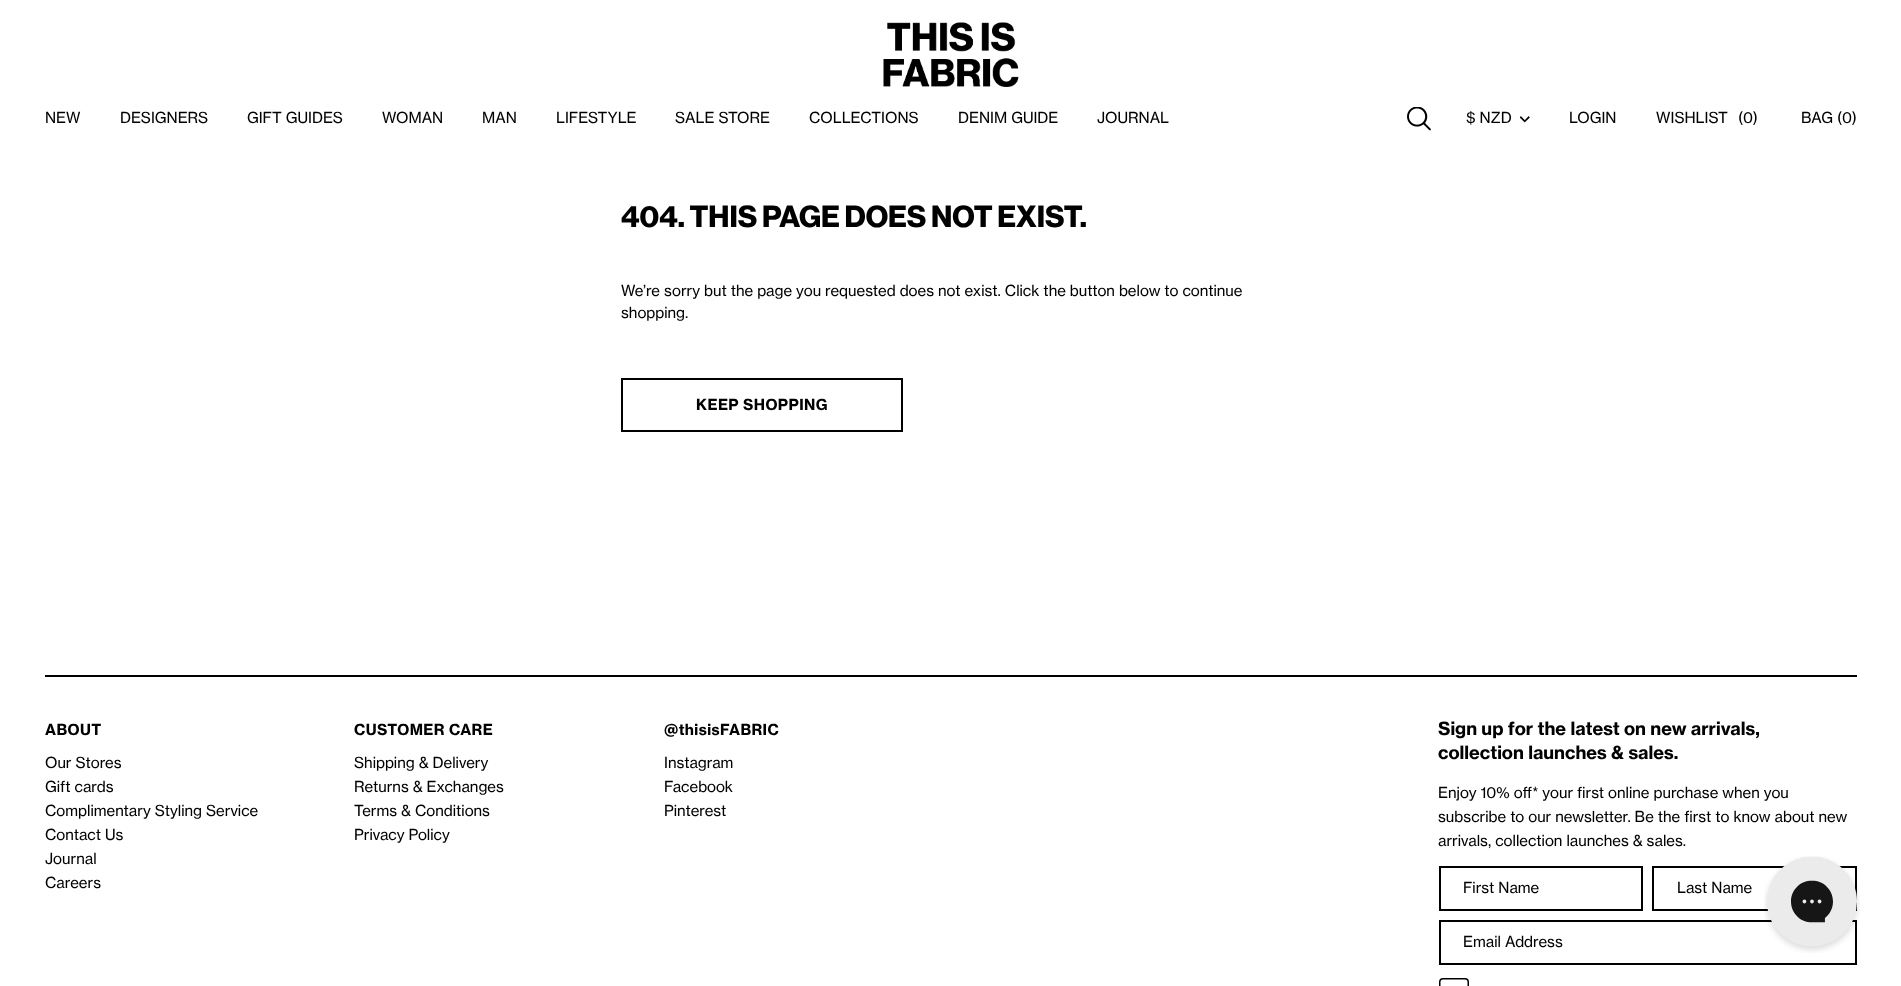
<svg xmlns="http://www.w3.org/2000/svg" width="1901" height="986">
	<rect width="100%" height="100%" fill="#FFFFFF" />
	<image x="883" y="22" width="136" height="65" href="assets/img1.png" />
	<g font-family="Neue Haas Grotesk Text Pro" font-size="15" fill="#000000">
		<text x="45" y="123">NEW</text>
		<text x="120" y="123">DESIGNERS</text>
		<text x="247" y="123">GIFT GUIDES</text>
		<text x="382" y="123">WOMAN</text>
		<text x="482" y="123">MAN</text>
		<text x="556" y="123">LIFESTYLE</text>
		<text x="675" y="123">SALE STORE</text>
		<text x="809" y="123">COLLECTIONS</text>
		<text x="958" y="123">DENIM GUIDE</text>
		<text x="1097" y="123">JOURNAL</text>
	</g>
	<image x="1407" y="107" width="24" height="24" href="assets/img2.png" />
	<text x="1466" y="123" font-family="Neue Haas Grotesk Text Pro" font-size="15" fill="#000000">$ NZD</text>
	<image x="1520" y="116" width="10" height="7" href="assets/img3.png" />
	<g font-family="Neue Haas Grotesk Text Pro" font-size="15" fill="#000000">
		<text x="1569" y="123">LOGIN</text>
		<text x="1656" y="123">WISHLIST</text>
		<text x="1738" y="123">(0)</text>
		<text x="1801" y="123">BAG (0)</text>
	</g>
	<text x="621" y="227" font-family="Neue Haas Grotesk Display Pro" font-size="30" font-weight="700" fill="#000000">404. THIS PAGE DOES NOT EXIST.</text>
	<g font-family="Neue Haas Grotesk Text Pro" font-size="15" fill="#000000">
		<text x="621" y="296">We’re sorry but the page you requested does not exist. Click the button below to continue</text>
		<text x="621" y="318">shopping.</text>
	</g>
	<rect x="622" y="379" width="280" height="52" fill="none" stroke="#000000" stroke-width="2" />
	<text x="696" y="410" font-family="Neue Haas Grotesk Text Pro" font-size="15" font-weight="700" letter-spacing="0.4" fill="#000000">KEEP SHOPPING</text>
	<rect x="45" y="675" width="1812" height="2" fill="#000000" />
	<text x="45" y="735" font-family="Neue Haas Grotesk Text Pro" font-size="15" font-weight="700" letter-spacing="0.4" fill="#000000">ABOUT</text>
	<g font-family="Neue Haas Grotesk Text Pro" font-size="15" fill="#000000">
		<text x="45" y="768">Our Stores</text>
		<text x="45" y="792">Gift cards</text>
		<text x="45" y="816">Complimentary Styling Service</text>
		<text x="45" y="840">Contact Us</text>
		<text x="45" y="864">Journal</text>
		<text x="45" y="888">Careers</text>
	</g>
	<text x="354" y="735" font-family="Neue Haas Grotesk Text Pro" font-size="15" font-weight="700" letter-spacing="0.4" fill="#000000">CUSTOMER CARE</text>
	<g font-family="Neue Haas Grotesk Text Pro" font-size="15" fill="#000000">
		<text x="354" y="768">Shipping &amp; Delivery</text>
		<text x="354" y="792">Returns &amp; Exchanges</text>
		<text x="354" y="816">Terms &amp; Conditions</text>
		<text x="354" y="840">Privacy Policy</text>
	</g>
	<text x="664" y="735" font-family="Neue Haas Grotesk Text Pro" font-size="15" font-weight="700" letter-spacing="0.4" fill="#000000">@thisisFABRIC</text>
	<g font-family="Neue Haas Grotesk Text Pro" font-size="15" fill="#000000">
		<text x="664" y="768">Instagram</text>
		<text x="664" y="792">Facebook</text>
		<text x="664" y="816">Pinterest</text>
	</g>
	<g font-family="Neue Haas Grotesk Text Pro" font-size="18" font-weight="700" fill="#000000">
		<text x="1438" y="735">Sign up for the latest on new arrivals,</text>
		<text x="1438" y="759">collection launches &amp; sales.</text>
	</g>
	<g font-family="Neue Haas Grotesk Text Pro" font-size="15" fill="#000000">
		<text x="1438" y="798">Enjoy 10% off* your first online purchase when you</text>
		<text x="1438" y="822">subscribe to our newsletter. Be the first to know about new</text>
		<text x="1438" y="846">arrivals, collection launches &amp; sales.</text>
	</g>
	<rect x="1440" y="867" width="202" height="43" fill="none" stroke="#000000" stroke-width="2" />
	<text x="1463" y="893" font-family="Neue Haas Grotesk Text Pro" font-size="15" fill="#000000">First Name</text>
	<rect x="1653" y="867" width="203" height="43" fill="none" stroke="#000000" stroke-width="2" />
	<text x="1677" y="893" font-family="Neue Haas Grotesk Text Pro" font-size="15" fill="#000000">Last Name</text>
	<rect x="1440" y="921" width="416" height="43" fill="none" stroke="#000000" stroke-width="2" />
	<text x="1463" y="947" font-family="Neue Haas Grotesk Text Pro" font-size="15" fill="#000000">Email Address</text>
	<rect x="1439.75" y="978.75" width="28.5" height="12.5" rx="3.25" fill="none" stroke="#000000" stroke-width="1.5" />
	<image x="1764" y="856" width="96" height="97" href="assets/img4.png" />
</svg>
